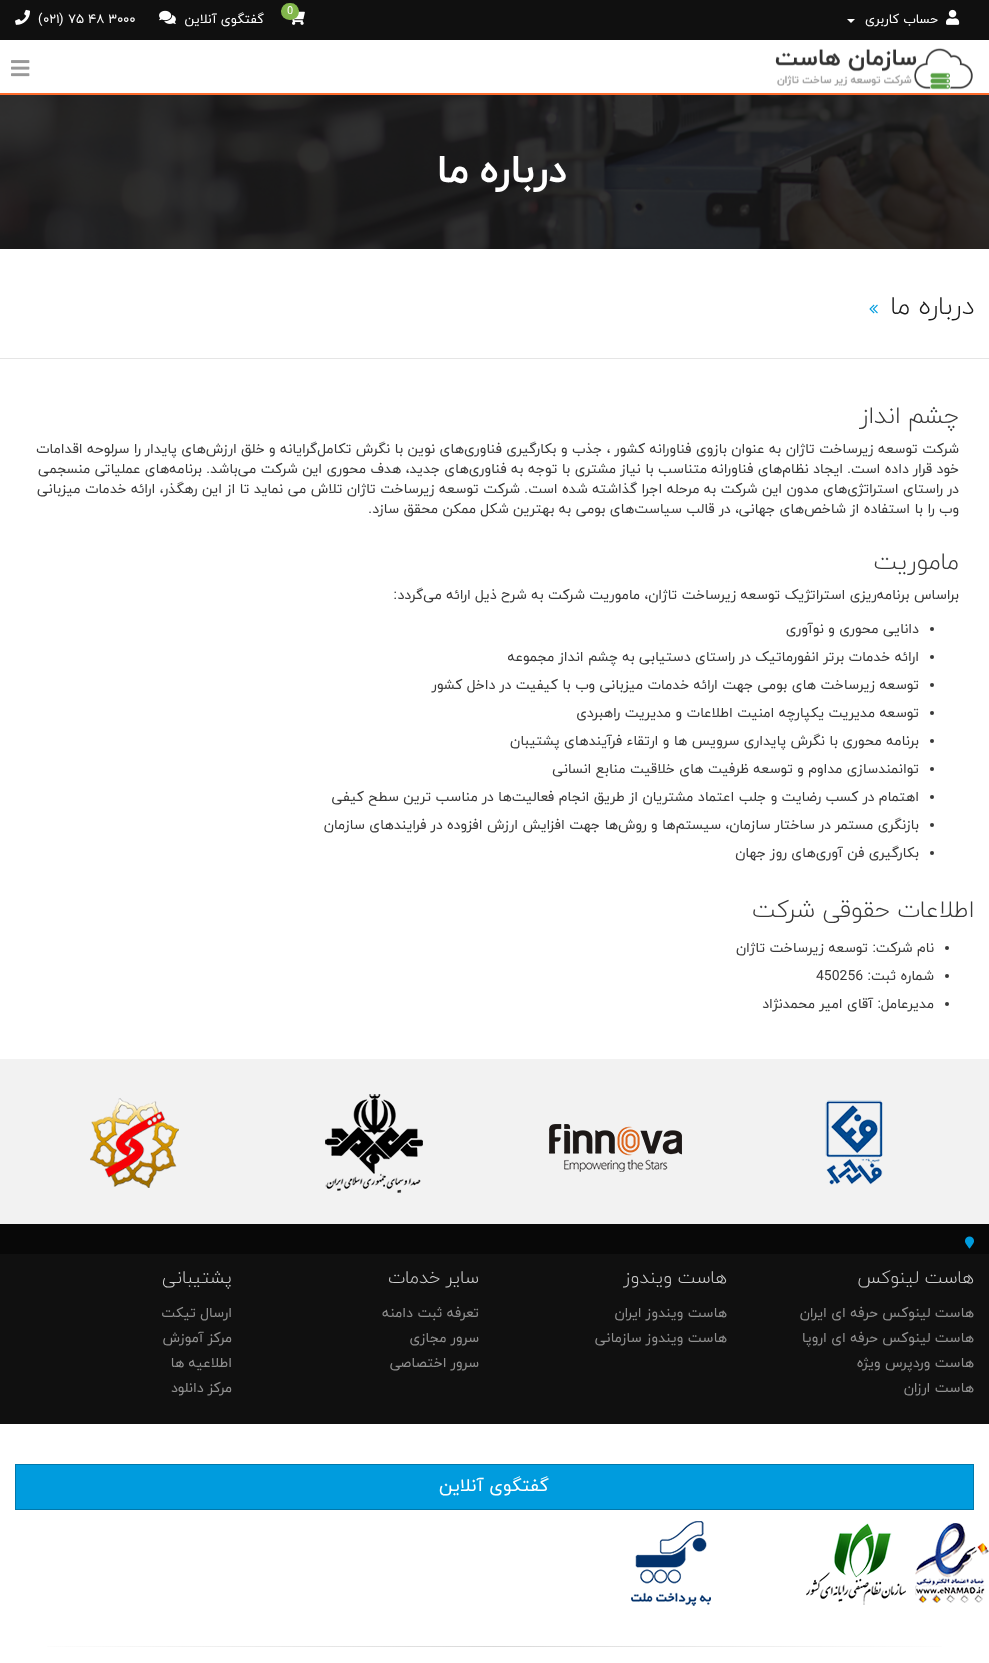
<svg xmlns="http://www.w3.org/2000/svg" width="989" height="1663">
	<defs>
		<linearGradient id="g1" gradientUnits="userSpaceOnUse" x1="15" y1="1647" x2="974" y2="1647"><stop offset="0" stop-color="#FFFFFF" /><stop offset="0.5" stop-color="#D9D9D9" /><stop offset="1" stop-color="#FFFFFF" /></linearGradient>
	</defs>
	<rect width="100%" height="100%" fill="#FFFFFF" />
	<rect x="0" y="0" width="989" height="40" fill="#101010" />
	<image x="946" y="9" width="14" height="16" href="assets/img1.png" />
	<text x="938" y="23" font-family="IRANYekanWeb" font-size="13" direction="rtl" fill="#FFFFFF">حساب کاربری</text>
	<path d="M847 19H855L851 23Z" fill="#FFFFFF" />
	<image x="292" y="11" width="13" height="14" href="assets/img2.png" />
	<rect x="281" y="3" width="18" height="17" rx="8.5" fill="#82B74C" />
	<text x="287" y="14" font-family="Roboto" font-size="11" fill="#FFFFFF">0</text>
	<text x="264" y="23" font-family="IRANYekanWeb" font-size="13" direction="rtl" fill="#FFFFFF">گفتگوی آنلاین</text>
	<image x="159" y="10" width="17" height="14" href="assets/img3.png" />
	<text x="68" y="23" font-family="IRANYekanWeb" font-size="13" fill="#FFFFFF">۷۵ ۴۸ ۳۰۰۰</text>
	<text x="59" y="23" font-family="Roboto" font-size="13" fill="#FFFFFF">)</text>
	<text x="43" y="23" font-family="IRANYekanWeb" font-size="13" fill="#FFFFFF">۰۲۱</text>
	<text x="38" y="23" font-family="Roboto" font-size="13" fill="#FFFFFF">(</text>
	<image x="15" y="9" width="15" height="16" href="assets/img4.png" />
	<image x="775" y="48" width="198" height="42" href="assets/img5.png" />
	<image x="11" y="60" width="19" height="17" href="assets/img6.png" />
	<image x="0" y="95" width="989" height="154" href="assets/img7.png" />
	<rect x="0" y="93" width="989" height="2" fill="#FF6C2C" />
	<text x="567" y="182" word-spacing="-2" font-family="IRANYekanWeb" font-size="40" font-weight="700" letter-spacing="1" direction="rtl" fill="#FFFFFF">درباره ما</text>
	<rect x="0" y="358" width="989" height="1" fill="#E5E5E5" />
	<text x="974" y="314" font-family="IRANYekanWeb" font-size="26" font-weight="300" direction="rtl" fill="#1A1A1A">درباره ما</text>
	<image x="869" y="304" width="9" height="10" href="assets/img8.png" />
	<text x="959" y="423" font-family="IRANYekanWeb" font-size="24" font-weight="300" direction="rtl" fill="#393939">چشم انداز</text>
	<g font-family="IRANYekanWeb" font-size="14" direction="rtl" fill="#393939">
		<text x="959" y="453">شرکت توسعه زیرساخت تاژان به عنوان بازوی فناورانه کشور ، جذب و بکارگیری فناوری‌های نوین با نگرش تکامل‌گرایانه و خلق ارزش‌های پایدار را سرلوحه اقدامات</text>
		<text x="959" y="473">خود قرار داده است</text>
	</g>
	<text x="851" y="473" font-family="Roboto" font-size="14" direction="rtl" fill="#393939">.</text>
	<text x="843" y="473" font-family="IRANYekanWeb" font-size="14" direction="rtl" fill="#393939">ایجاد نظام‌های فناورانه متناسب با نیاز مشتری با توجه به فناوری‌های جدید، هدف محوری این شرکت می‌باشد</text>
	<text x="210" y="473" font-family="Roboto" font-size="14" direction="rtl" fill="#393939">.</text>
	<g font-family="IRANYekanWeb" font-size="14" direction="rtl" fill="#393939">
		<text x="202" y="473">برنامه‌های عملیاتی منسجمی</text>
		<text x="959" y="493">در راستای استراتژی‌های مدون این شرکت به مرحله اجرا گذاشته شده است</text>
	</g>
	<text x="528" y="493" font-family="Roboto" font-size="14" direction="rtl" fill="#393939">.</text>
	<g font-family="IRANYekanWeb" font-size="14" direction="rtl" fill="#393939">
		<text x="520" y="493">شرکت توسعه زیرساخت تاژان تلاش می نماید تا از این رهگذر، ارائه خدمات میزبانی</text>
		<text x="959" y="513">وب را با استفاده از شاخص‌های جهانی، در قالب سیاست‌های بومی به بهترین شکل ممکن محقق سازد</text>
	</g>
	<text x="372" y="513" font-family="Roboto" font-size="14" direction="rtl" fill="#393939">.</text>
	<text x="959" y="569" font-family="IRANYekanWeb" font-size="24" font-weight="300" direction="rtl" fill="#393939">ماموریت</text>
	<text x="959" y="599" font-family="IRANYekanWeb" font-size="14" direction="rtl" fill="#393939">براساس برنامه‌ریزی استراتژیک توسعه زیرساخت تاژان، ماموریت شرکت به شرح ذیل ارائه می‌گردد</text>
	<text x="397" y="599" font-family="Roboto" font-size="14" direction="rtl" fill="#393939">:</text>
	<circle cx="932" cy="629" r="2" fill="#393939" />
	<text x="919" y="633" font-family="IRANYekanWeb" font-size="14" direction="rtl" fill="#393939">دانایی‌ محوری و نوآوری</text>
	<circle cx="932" cy="657" r="2" fill="#393939" />
	<text x="919" y="661" font-family="IRANYekanWeb" font-size="14" direction="rtl" fill="#393939">ارائه خدمات برتر انفورماتیک در راستای دستیابی به چشم انداز مجموعه</text>
	<circle cx="932" cy="685" r="2" fill="#393939" />
	<text x="919" y="689" font-family="IRANYekanWeb" font-size="14" direction="rtl" fill="#393939">توسعه زیرساخت های بومی جهت ارائه خدمات میزبانی وب با کیفیت در داخل کشور</text>
	<circle cx="932" cy="713" r="2" fill="#393939" />
	<text x="919" y="717" font-family="IRANYekanWeb" font-size="14" direction="rtl" fill="#393939">توسعه مدیریت یکپارچه امنیت اطلاعات و مدیریت راهبردی</text>
	<circle cx="932" cy="741" r="2" fill="#393939" />
	<text x="919" y="745" font-family="IRANYekanWeb" font-size="14" direction="rtl" fill="#393939">برنامه محوری با نگرش پایداری سرویس ها و ارتقاء فرآیندهای پشتیبان</text>
	<circle cx="932" cy="769" r="2" fill="#393939" />
	<text x="919" y="773" font-family="IRANYekanWeb" font-size="14" direction="rtl" fill="#393939">توانمندسازی مداوم و توسعه ظرفیت های خلاقیت منابع انسانی</text>
	<circle cx="932" cy="797" r="2" fill="#393939" />
	<text x="919" y="801" font-family="IRANYekanWeb" font-size="14" direction="rtl" fill="#393939">اهتمام در کسب رضایت و جلب اعتماد مشتریان از طریق انجام فعالیت‌ها در مناسب ترین سطح کیفی</text>
	<circle cx="932" cy="825" r="2" fill="#393939" />
	<text x="919" y="829" font-family="IRANYekanWeb" font-size="14" direction="rtl" fill="#393939">بازنگری مستمر در ساختار سازمان، سیستم‌ها و روش‌ها جهت افزایش ارزش افزوده در فرایندهای سازمان</text>
	<circle cx="932" cy="853" r="2" fill="#393939" />
	<text x="919" y="857" font-family="IRANYekanWeb" font-size="14" direction="rtl" fill="#393939">بکارگیری فن آوری‌های روز جهان</text>
	<text x="974" y="917" font-family="IRANYekanWeb" font-size="24" font-weight="300" direction="rtl" fill="#393939">اطلاعات حقوقی شرکت</text>
	<circle cx="947" cy="948" r="2" fill="#393939" />
	<text x="934" y="952" font-family="IRANYekanWeb" font-size="14" direction="rtl" fill="#393939">نام شرکت</text>
	<text x="876" y="952" font-family="Roboto" font-size="14" direction="rtl" fill="#393939">:</text>
	<text x="868" y="952" font-family="IRANYekanWeb" font-size="14" direction="rtl" fill="#393939">توسعه زیرساخت تاژان</text>
	<circle cx="947" cy="976" r="2" fill="#393939" />
	<text x="934" y="980" font-family="IRANYekanWeb" font-size="14" direction="rtl" fill="#393939">شماره ثبت</text>
	<text x="871" y="980" font-family="Roboto" font-size="14" direction="rtl" fill="#393939">:</text>
	<text x="816" y="980" font-family="Roboto" font-size="14" fill="#393939">450256</text>
	<circle cx="947" cy="1004" r="2" fill="#393939" />
	<text x="934" y="1008" font-family="IRANYekanWeb" font-size="14" direction="rtl" fill="#393939">مدیرعامل</text>
	<text x="881" y="1008" font-family="Roboto" font-size="14" direction="rtl" fill="#393939">:</text>
	<text x="873" y="1008" font-family="IRANYekanWeb" font-size="14" direction="rtl" fill="#393939">آقای امیر محمدنژاد</text>
	<rect x="0" y="1059" width="989" height="165" fill="#F2F2F2" />
	<image x="825" y="1100" width="58" height="85" href="assets/img9.png" />
	<image x="549" y="1124" width="133" height="48" href="assets/img10.png" />
	<image x="325" y="1094" width="98" height="99" href="assets/img11.png" />
	<image x="90" y="1098" width="89" height="90" href="assets/img12.png" />
	<rect x="0" y="1224" width="989" height="30" fill="#080808" />
	<image x="965" y="1236" width="9" height="13" href="assets/img13.png" />
	<rect x="0" y="1254" width="989" height="170" fill="#101010" />
	<text x="974" y="1283" font-family="IRANYekanWeb" font-size="18" font-weight="300" direction="rtl" fill="#CFCFCF">هاست لینوکس</text>
	<g font-family="IRANYekanWeb" font-size="14" direction="rtl" fill="#909090">
		<text x="974" y="1317">هاست لینوکس حرفه ای ایران</text>
		<text x="974" y="1342">هاست لینوکس حرفه ای اروپا</text>
		<text x="974" y="1367">هاست وردپرس ویژه</text>
		<text x="974" y="1392">هاست ارزان</text>
	</g>
	<text x="727" y="1283" font-family="IRANYekanWeb" font-size="18" font-weight="300" direction="rtl" fill="#CFCFCF">هاست ویندوز</text>
	<g font-family="IRANYekanWeb" font-size="14" direction="rtl" fill="#909090">
		<text x="727" y="1317">هاست ویندوز ایران</text>
		<text x="727" y="1342">هاست ویندوز سازمانی</text>
	</g>
	<text x="479" y="1283" font-family="IRANYekanWeb" font-size="18" font-weight="300" direction="rtl" fill="#CFCFCF">سایر خدمات</text>
	<g font-family="IRANYekanWeb" font-size="14" direction="rtl" fill="#909090">
		<text x="479" y="1317">تعرفه ثبت دامنه</text>
		<text x="479" y="1342">سرور مجازی</text>
		<text x="479" y="1367">سرور اختصاصی</text>
	</g>
	<text x="232" y="1283" font-family="IRANYekanWeb" font-size="18" font-weight="300" direction="rtl" fill="#CFCFCF">پشتیبانی</text>
	<g font-family="IRANYekanWeb" font-size="14" direction="rtl" fill="#909090">
		<text x="232" y="1317">ارسال تیکت</text>
		<text x="232" y="1342">مرکز آموزش</text>
		<text x="232" y="1367">اطلاعیه ها</text>
		<text x="232" y="1392">مرکز دانلود</text>
	</g>
	<rect x="15.5" y="1464.5" width="958" height="45" fill="#009CDE" stroke="#0078AB" />
	<text x="549" y="1491" font-family="IRANYekanWeb" font-size="18" direction="rtl" fill="#FFFFFF">گفتگوی آنلاین</text>
	<image x="915" y="1523" width="74" height="80" href="assets/img14.png" />
	<image x="806" y="1523" width="100" height="82" href="assets/img15.png" />
	<image x="631" y="1521" width="80" height="85" href="assets/img16.png" />
	<rect x="47" y="1646" width="895" height="1" fill="url(#g1)" />
</svg>
